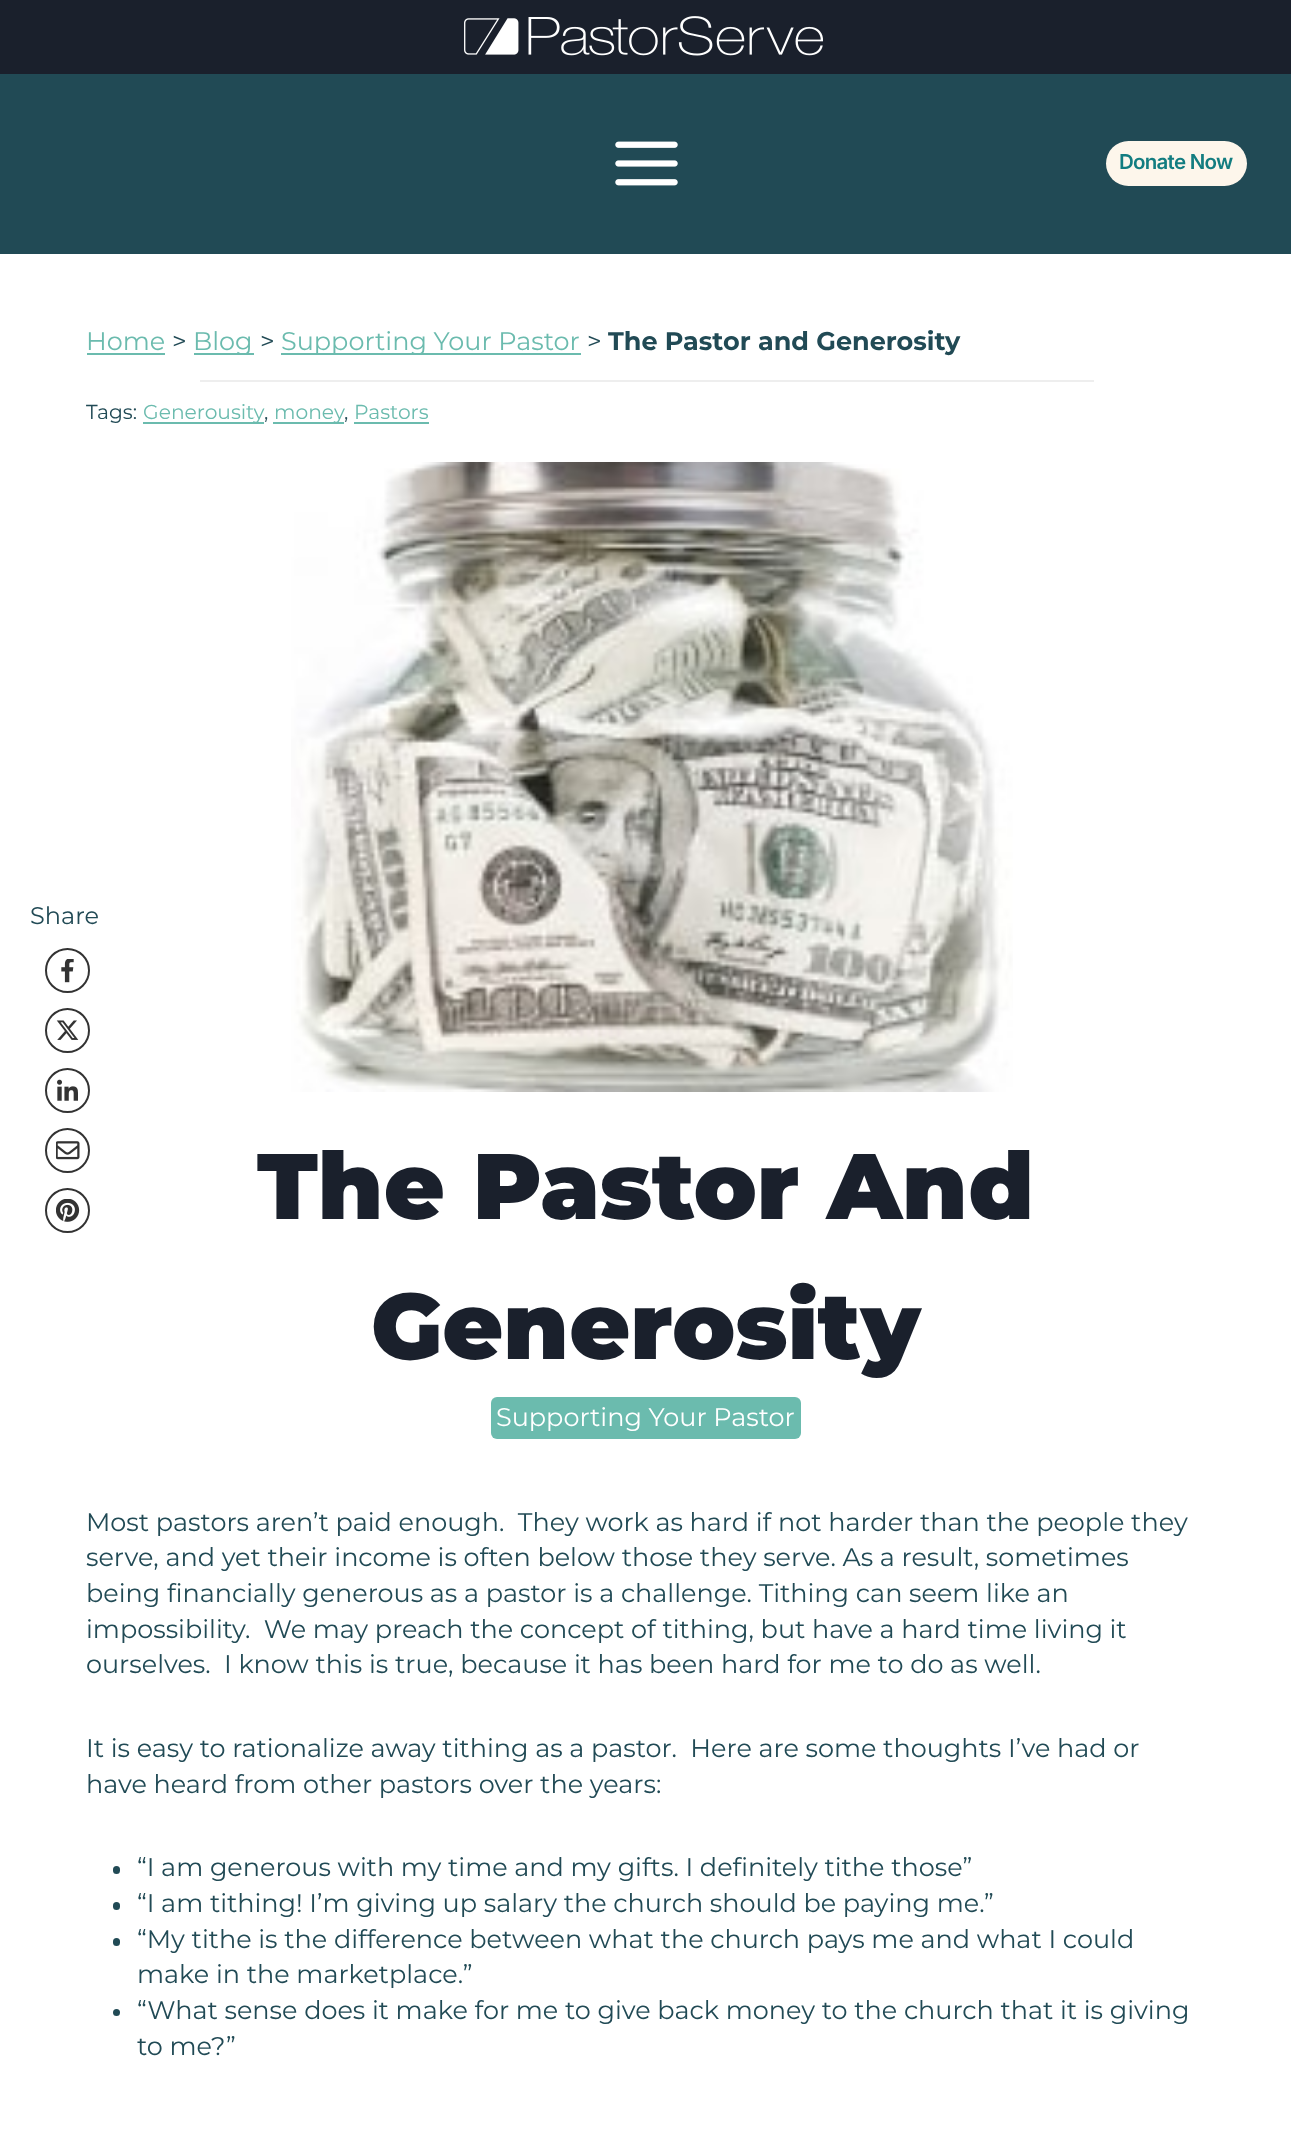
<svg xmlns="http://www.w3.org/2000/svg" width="1291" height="2132">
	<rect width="100%" height="100%" fill="#FFFFFF" />
	<rect x="0" y="74" width="1291" height="180" fill="#214A55" />
	<rect x="0" y="0" width="1291" height="74" fill="#1A202C" />
	<image x="464" y="16" width="359" height="40" href="assets/img1.png" />
	<image x="615" y="141" width="63" height="45" href="assets/img2.png" />
	<rect x="1106" y="141" width="141" height="45" rx="22.5" fill="#FDF6EB" />
	<text x="1119" y="169" font-family="Inter" font-size="20.5" font-weight="600" letter-spacing="-0.75" fill="#137D80">Donate Now</text>
	<text x="86" y="350" font-family="Montserrat" font-size="25.5" fill="#6BBBAE">Home</text>
	<rect x="87" y="353" width="78" height="2" fill="#6BBBAE" />
	<text x="172" y="350" font-family="Montserrat" font-size="25.5" fill="#214A55">&gt;</text>
	<rect x="194" y="353" width="60" height="2" fill="#6BBBAE" />
	<text x="193" y="350" font-family="Montserrat" font-size="25.5" fill="#6BBBAE">Blog</text>
	<text x="260" y="350" font-family="Montserrat" font-size="25.5" fill="#214A55">&gt;</text>
	<rect x="281" y="353" width="300" height="2" fill="#6BBBAE" />
	<text x="281" y="350" font-family="Montserrat" font-size="25.5" fill="#6BBBAE">Supporting Your Pastor</text>
	<text x="587" y="350" font-family="Montserrat" font-size="25.5" fill="#214A55">&gt;</text>
	<text x="608" y="350" font-family="Montserrat" font-size="25.5" font-weight="700" fill="#214A55">The Pastor and Generosity</text>
	<rect x="200" y="380" width="894" height="2" fill="#EEEEEE" />
	<text x="86" y="419" font-family="Montserrat" font-size="20.25" fill="#214A55">Tags:</text>
	<rect x="143" y="422" width="121" height="2" fill="#6BBBAE" />
	<text x="143" y="419" font-family="Montserrat" font-size="20.25" fill="#6BBBAE">Generousity</text>
	<text x="264" y="419" font-family="Montserrat" font-size="20.25" fill="#214A55">,</text>
	<rect x="273" y="422" width="71" height="2" fill="#6BBBAE" />
	<text x="274" y="419" font-family="Montserrat" font-size="20.25" fill="#6BBBAE">money</text>
	<text x="344" y="419" font-family="Montserrat" font-size="20.25" fill="#214A55">,</text>
	<text x="354" y="419" font-family="Montserrat" font-size="20.25" fill="#6BBBAE">Pastors</text>
	<rect x="354" y="422" width="75" height="2" fill="#6BBBAE" />
	<text x="30" y="924" font-family="Montserrat" font-size="24" fill="#214A55">Share</text>
	<circle cx="67.5" cy="970.5" r="21.5" fill="none" stroke="#333333" stroke-width="2" />
	<image x="61" y="959" width="13" height="24" href="assets/img3.png" />
	<circle cx="67.5" cy="1030.5" r="21.5" fill="none" stroke="#333333" stroke-width="2" />
	<image x="56" y="1020" width="23" height="20" href="assets/img4.png" />
	<circle cx="67.5" cy="1090.5" r="21.5" fill="none" stroke="#333333" stroke-width="2" />
	<image x="57" y="1079" width="21" height="22" href="assets/img5.png" />
	<circle cx="67.5" cy="1150.5" r="21.5" fill="none" stroke="#333333" stroke-width="2" />
	<image x="56" y="1141" width="24" height="19" href="assets/img6.png" />
	<circle cx="67.5" cy="1210.5" r="21.5" fill="none" stroke="#333333" stroke-width="2" />
	<image x="56" y="1199" width="24" height="23" href="assets/img7.png" />
	<g font-family="Montserrat" font-size="25.5" fill="#214A55">
		<text x="86" y="1531" xml:space="preserve">Most pastors aren’t paid enough.  They work as hard if not harder than the people they</text>
		<text x="86" y="1566">serve, and yet their income is often below those they serve. As a result, sometimes</text>
		<text x="86" y="1602">being financially generous as a pastor is a challenge. Tithing can seem like an</text>
		<text x="86" y="1638" xml:space="preserve">impossibility.  We may preach the concept of tithing, but have a hard time living it</text>
		<text x="86" y="1673" xml:space="preserve">ourselves.  I know this is true, because it has been hard for me to do as well.</text>
		<text x="86" y="1757" xml:space="preserve">It is easy to rationalize away tithing as a pastor.  Here are some thoughts I’ve had or</text>
		<text x="86" y="1793">have heard from other pastors over the years:</text>
	</g>
	<rect x="113" y="1866" width="7" height="8" rx="3.5" fill="#214A55" />
	<text x="137" y="1876" font-family="Montserrat" font-size="25.5" fill="#214A55">“I am generous with my time and my gifts. I definitely tithe those”</text>
	<rect x="113" y="1902" width="7" height="8" rx="3.5" fill="#214A55" />
	<text x="137" y="1912" font-family="Montserrat" font-size="25.5" fill="#214A55">“I am tithing! I’m giving up salary the church should be paying me.”</text>
	<rect x="113" y="1938" width="7" height="8" rx="3.5" fill="#214A55" />
	<g font-family="Montserrat" font-size="25.5" fill="#214A55">
		<text x="137" y="1948">“My tithe is the difference between what the church pays me and what I could</text>
		<text x="137" y="1983">make in the marketplace.”</text>
	</g>
	<circle cx="116.5" cy="2012.5" r="3.5" fill="#214A55" />
	<g font-family="Montserrat" font-size="25.5" fill="#214A55">
		<text x="137" y="2019">“What sense does it make for me to give back money to the church that it is giving</text>
		<text x="137" y="2055">to me?”</text>
	</g>
	<image x="291" y="462" width="722" height="630" href="assets/img8.png" />
	<g font-family="Montserrat" font-size="93" font-weight="900" fill="#1A202C">
		<text x="257" y="1219">The Pastor And</text>
		<text x="371" y="1359">Generosity</text>
	</g>
	<rect x="491" y="1397" width="310" height="42" rx="6" fill="#6BBBAE" />
	<text x="496" y="1426" font-family="Montserrat" font-size="25.5" fill="#FFFFFF">Supporting Your Pastor</text>
</svg>
